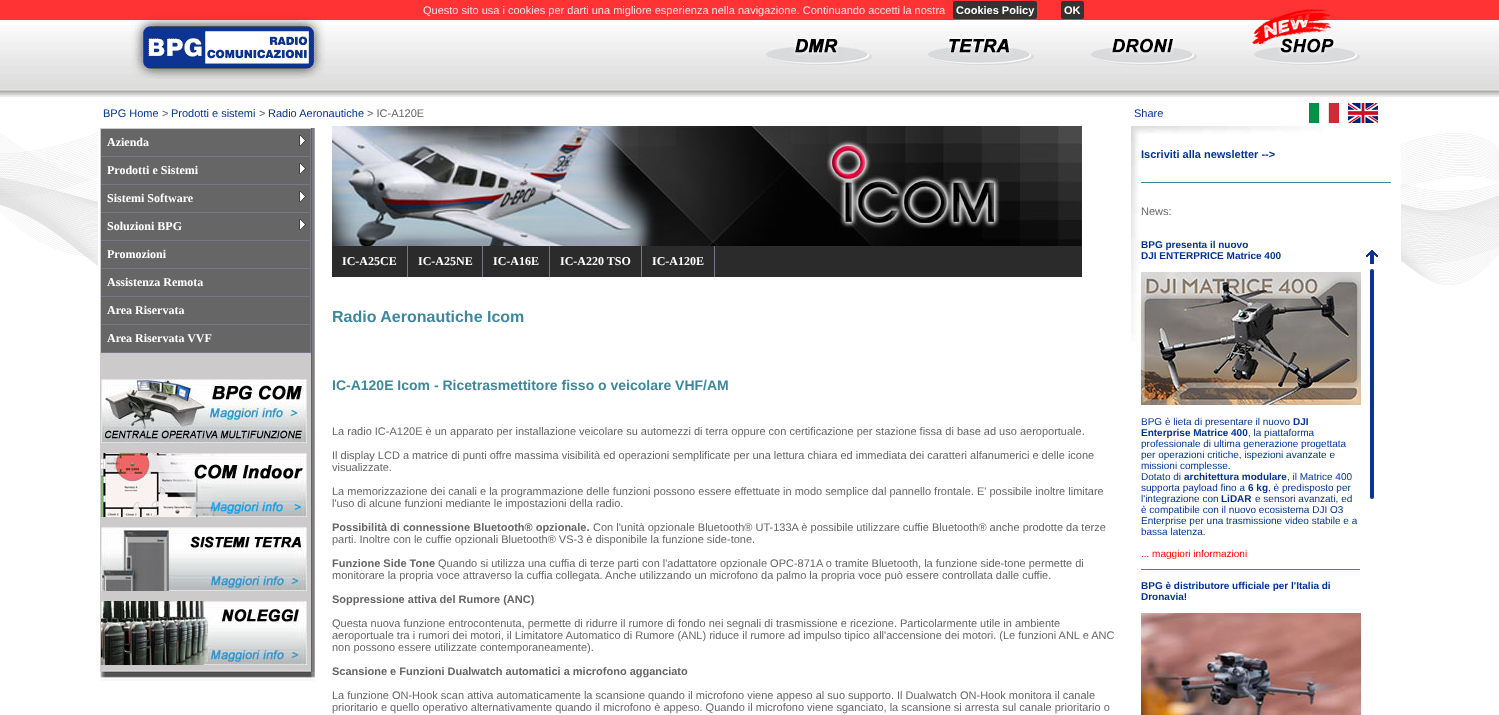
<svg xmlns="http://www.w3.org/2000/svg" width="1499" height="715">
	<rect width="100%" height="100%" fill="#FFFFFF" />
	<image x="98" y="25" width="1303" height="72" href="assets/img2.png" />
	<image x="131" y="14" width="195" height="65" href="assets/img3.png" />
	<image x="1252" y="9" width="108" height="56" href="assets/img7.png" />
	<rect x="0" y="0" width="1499" height="20" fill="#FF0000" fill-opacity="0.8" />
	<text x="423" y="14" font-family="Liberation Sans" font-size="11" fill="#E5E5E5">Questo sito usa i cookies per darti una migliore esperienza nella navigazione. Continuando accetti la nostra</text>
	<rect x="953" y="1" width="84" height="18" rx="2" fill="#333333" />
	<text x="956" y="14" font-family="Liberation Sans" font-size="11" font-weight="700" fill="#FFFFFF">Cookies Policy</text>
	<rect x="1061" y="1" width="23" height="18" rx="2" fill="#333333" />
	<text x="1064" y="14" font-family="Liberation Sans" font-size="11" font-weight="700" fill="#FFFFFF">OK</text>
	<image x="0" y="25" width="98" height="72" href="assets/img1.png" />
	<image x="766" y="32" width="106" height="33" href="assets/img4.png" />
	<image x="928" y="32" width="106" height="33" href="assets/img5.png" />
	<image x="1091" y="38" width="106" height="27" href="assets/img6.png" />
	<image x="1401" y="25" width="98" height="72" href="assets/img1.png" />
	<text x="103" y="117" font-family="Liberation Sans" font-size="11" fill="#003399">BPG Home</text>
	<text x="162" y="117" font-family="Liberation Sans" font-size="11" fill="#666666">&gt;</text>
	<text x="171" y="117" font-family="Liberation Sans" font-size="11" fill="#003399">Prodotti e sistemi</text>
	<text x="259" y="117" font-family="Liberation Sans" font-size="11" fill="#666666">&gt;</text>
	<text x="268" y="117" font-family="Liberation Sans" font-size="11" fill="#003399">Radio Aeronautiche</text>
	<text x="367" y="117" font-family="Liberation Sans" font-size="11" fill="#666666">&gt; IC-A120E</text>
	<text x="1134" y="117" font-family="Liberation Sans" font-size="11" fill="#003399">Share</text>
	<image x="1309" y="103" width="30" height="20" href="assets/img8.png" />
	<image x="1348" y="103" width="30" height="20" href="assets/img9.png" />
	<image x="0" y="133" width="98" height="133" href="assets/img10.png" />
	<image x="100" y="128" width="215" height="553" href="assets/img11.png" />
	<rect x="101" y="129" width="209" height="27" fill="#666666" />
	<rect x="310" y="129" width="1" height="224" fill="#777788" />
	<rect x="101" y="156" width="210" height="1" fill="#777788" />
	<text x="107" y="146" font-family="Liberation Serif" font-size="12" font-weight="700" fill="#FFFFFF">Azienda</text>
	<image x="299" y="135" width="7" height="11" href="assets/img12.png" />
	<rect x="101" y="157" width="209" height="27" fill="#666666" />
	<rect x="101" y="184" width="210" height="1" fill="#777788" />
	<text x="107" y="174" font-family="Liberation Serif" font-size="12" font-weight="700" fill="#FFFFFF">Prodotti e Sistemi</text>
	<image x="299" y="163" width="7" height="11" href="assets/img12.png" />
	<rect x="101" y="185" width="209" height="27" fill="#666666" />
	<rect x="101" y="212" width="210" height="1" fill="#777788" />
	<text x="107" y="202" font-family="Liberation Serif" font-size="12" font-weight="700" fill="#FFFFFF">Sistemi Software</text>
	<image x="299" y="191" width="7" height="11" href="assets/img12.png" />
	<rect x="101" y="213" width="209" height="27" fill="#666666" />
	<rect x="101" y="240" width="210" height="1" fill="#777788" />
	<text x="107" y="230" font-family="Liberation Serif" font-size="12" font-weight="700" fill="#FFFFFF">Soluzioni BPG</text>
	<image x="299" y="219" width="7" height="11" href="assets/img12.png" />
	<rect x="101" y="241" width="209" height="27" fill="#666666" />
	<rect x="101" y="268" width="210" height="1" fill="#777788" />
	<text x="107" y="258" font-family="Liberation Serif" font-size="12" font-weight="700" fill="#FFFFFF">Promozioni</text>
	<rect x="101" y="269" width="209" height="27" fill="#666666" />
	<rect x="101" y="296" width="210" height="1" fill="#777788" />
	<text x="107" y="286" font-family="Liberation Serif" font-size="12" font-weight="700" fill="#FFFFFF">Assistenza Remota</text>
	<rect x="101" y="297" width="209" height="27" fill="#666666" />
	<rect x="101" y="324" width="210" height="1" fill="#777788" />
	<text x="107" y="314" font-family="Liberation Serif" font-size="12" font-weight="700" fill="#FFFFFF">Area Riservata</text>
	<rect x="101" y="325" width="209" height="27" fill="#666666" />
	<rect x="101" y="352" width="210" height="1" fill="#777788" />
	<text x="107" y="342" font-family="Liberation Serif" font-size="12" font-weight="700" fill="#FFFFFF">Area Riservata VVF</text>
	<image x="101" y="379" width="206" height="64" href="assets/img13.png" />
	<image x="101" y="453" width="206" height="64" href="assets/img14.png" />
	<image x="101" y="527" width="206" height="64" href="assets/img15.png" />
	<image x="101" y="601" width="206" height="64" href="assets/img16.png" />
	<image x="332" y="126" width="750" height="120" href="assets/img17.png" />
	<rect x="332" y="246" width="750" height="31" fill="#2B2B2B" />
	<rect x="407" y="246" width="1" height="31" fill="#777788" />
	<text x="342" y="265" font-family="Liberation Serif" font-size="12" font-weight="700" fill="#FFFFFF">IC-A25CE</text>
	<rect x="482" y="246" width="1" height="31" fill="#777788" />
	<text x="418" y="265" font-family="Liberation Serif" font-size="12" font-weight="700" fill="#FFFFFF">IC-A25NE</text>
	<rect x="549" y="246" width="1" height="31" fill="#777788" />
	<text x="493" y="265" font-family="Liberation Serif" font-size="12" font-weight="700" fill="#FFFFFF">IC-A16E</text>
	<rect x="641" y="246" width="1" height="31" fill="#777788" />
	<text x="560" y="265" font-family="Liberation Serif" font-size="12" font-weight="700" fill="#FFFFFF">IC-A220 TSO</text>
	<rect x="714" y="246" width="1" height="31" fill="#777788" />
	<text x="652" y="265" font-family="Liberation Serif" font-size="12" font-weight="700" fill="#FFFFFF">IC-A120E</text>
	<text x="332" y="322" font-family="Liberation Sans" font-size="16" font-weight="700" fill="#3E889D">Radio Aeronautiche Icom</text>
	<text x="332" y="390" font-family="Liberation Sans" font-size="14" font-weight="700" fill="#3E889D">IC-A120E Icom - Ricetrasmettitore fisso o veicolare VHF/AM</text>
	<g font-family="Liberation Sans" font-size="11" fill="#666666">
		<text x="332" y="435">La radio IC-A120E è un apparato per installazione veicolare su automezzi di terra oppure con certificazione per stazione fissa di base ad uso aeroportuale.</text>
		<text x="332" y="459">Il display LCD a matrice di punti offre massima visibilità ed operazioni semplificate per una lettura chiara ed immediata dei caratteri alfanumerici e delle icone</text>
		<text x="332" y="471">visualizzate.</text>
		<text x="332" y="495">La memorizzazione dei canali e la programmazione delle funzioni possono essere effettuate in modo semplice dal pannello frontale. E' possibile inoltre limitare</text>
		<text x="332" y="507">l'uso di alcune funzioni mediante le impostazioni della radio.</text>
	</g>
	<text x="332" y="531" font-family="Liberation Sans" font-size="11" font-weight="700" fill="#666666">Possibilità di connessione Bluetooth® opzionale.</text>
	<g font-family="Liberation Sans" font-size="11" fill="#666666">
		<text x="593" y="531">Con l'unità opzionale Bluetooth® UT-133A è possibile utilizzare cuffie Bluetooth® anche prodotte da terze</text>
		<text x="332" y="543">parti. Inoltre con le cuffie opzionali Bluetooth® VS-3 è disponibile la funzione side-tone.</text>
	</g>
	<text x="332" y="567" font-family="Liberation Sans" font-size="11" font-weight="700" fill="#666666">Funzione Side Tone</text>
	<g font-family="Liberation Sans" font-size="11" fill="#666666">
		<text x="438" y="567">Quando si utilizza una cuffia di terze parti con l'adattatore opzionale OPC-871A o tramite Bluetooth, la funzione side-tone permette di</text>
		<text x="332" y="579">monitorare la propria voce attraverso la cuffia collegata. Anche utilizzando un microfono da palmo la propria voce può essere controllata dalle cuffie.</text>
	</g>
	<text x="332" y="603" font-family="Liberation Sans" font-size="11" font-weight="700" fill="#666666">Soppressione attiva del Rumore (ANC)</text>
	<g font-family="Liberation Sans" font-size="11" fill="#666666">
		<text x="332" y="627">Questa nuova funzione entrocontenuta, permette di ridurre il rumore di fondo nei segnali di trasmissione e ricezione. Particolarmente utile in ambiente</text>
		<text x="332" y="639">aeroportuale tra i rumori dei motori, il Limitatore Automatico di Rumore (ANL) riduce il rumore ad impulso tipico all'accensione dei motori. (Le funzioni ANL e ANC</text>
		<text x="332" y="651">non possono essere utilizzate contemporaneamente).</text>
	</g>
	<text x="332" y="675" font-family="Liberation Sans" font-size="11" font-weight="700" fill="#666666">Scansione e Funzioni Dualwatch automatici a microfono agganciato</text>
	<g font-family="Liberation Sans" font-size="11" fill="#666666">
		<text x="332" y="699">La funzione ON-Hook scan attiva automaticamente la scansione quando il microfono viene appeso al suo supporto. Il Dualwatch ON-Hook monitora il canale</text>
		<text x="332" y="711">prioritario e quello operativo alternativamente quando il microfono è appeso. Quando il microfono viene sganciato, la scansione si arresta sul canale prioritario o</text>
	</g>
	<image x="1131" y="126" width="192" height="216" href="assets/img18.png" />
	<text x="1141" y="158" font-family="Liberation Sans" font-size="11" font-weight="700" fill="#003399">Iscriviti alla newsletter --&gt;</text>
	<rect x="1141" y="182" width="250" height="1" fill="#3E889D" />
	<text x="1141" y="215" font-family="Liberation Sans" font-size="11" fill="#666666">News:</text>
	<g font-family="Liberation Sans" font-size="10" font-weight="700" fill="#003399">
		<text x="1141" y="248">BPG presenta il nuovo</text>
		<text x="1141" y="259">DJI ENTERPRICE Matrice 400</text>
	</g>
	<image x="1141" y="272" width="220" height="133" href="assets/img19.png" />
	<text x="1141" y="425" font-family="Liberation Sans" font-size="10" fill="#003399">BPG è lieta di presentare il nuovo</text>
	<g font-family="Liberation Sans" font-size="10" font-weight="700" fill="#003399">
		<text x="1293" y="425">DJI</text>
		<text x="1141" y="436">Enterprise Matrice 400</text>
	</g>
	<g font-family="Liberation Sans" font-size="10" fill="#003399">
		<text x="1248" y="436">, la piattaforma</text>
		<text x="1141" y="447">professionale di ultima generazione progettata</text>
		<text x="1141" y="458">per operazioni critiche, ispezioni avanzate e</text>
		<text x="1141" y="469">missioni complesse.</text>
		<text x="1141" y="480">Dotato di</text>
	</g>
	<text x="1184" y="480" font-family="Liberation Sans" font-size="10" font-weight="700" fill="#003399">architettura modulare</text>
	<g font-family="Liberation Sans" font-size="10" fill="#003399">
		<text x="1287" y="480">, il Matrice 400</text>
		<text x="1141" y="491">supporta payload fino a</text>
	</g>
	<text x="1248" y="491" font-family="Liberation Sans" font-size="10" font-weight="700" fill="#003399">6 kg</text>
	<g font-family="Liberation Sans" font-size="10" fill="#003399">
		<text x="1268" y="491">, è predisposto per</text>
		<text x="1141" y="502">l'integrazione con</text>
	</g>
	<text x="1221" y="502" font-family="Liberation Sans" font-size="10" font-weight="700" fill="#003399">LiDAR</text>
	<g font-family="Liberation Sans" font-size="10" fill="#003399">
		<text x="1255" y="502">e sensori avanzati, ed</text>
		<text x="1141" y="513">è compatibile con il nuovo ecosistema DJI O3</text>
		<text x="1141" y="524">Enterprise per una trasmissione video stabile e a</text>
		<text x="1141" y="535">bassa latenza.</text>
	</g>
	<text x="1141" y="557" font-family="Liberation Sans" font-size="10" fill="#FF0000">... maggiori informazioni</text>
	<rect x="1141" y="569" width="219" height="1" fill="#3E889D" />
	<g font-family="Liberation Sans" font-size="10" font-weight="700" fill="#003399">
		<text x="1141" y="589">BPG è distributore ufficiale per l'Italia di</text>
		<text x="1141" y="600">Dronavia!</text>
	</g>
	<image x="1141" y="613" width="220" height="102" href="assets/img20.png" />
	<rect x="1370" y="269" width="4" height="230" rx="2" fill="#0D3493" />
	<image x="1366" y="250" width="12" height="14" href="assets/img21.png" />
	<image x="1401" y="133" width="98" height="152" href="assets/img22.png" />
</svg>
